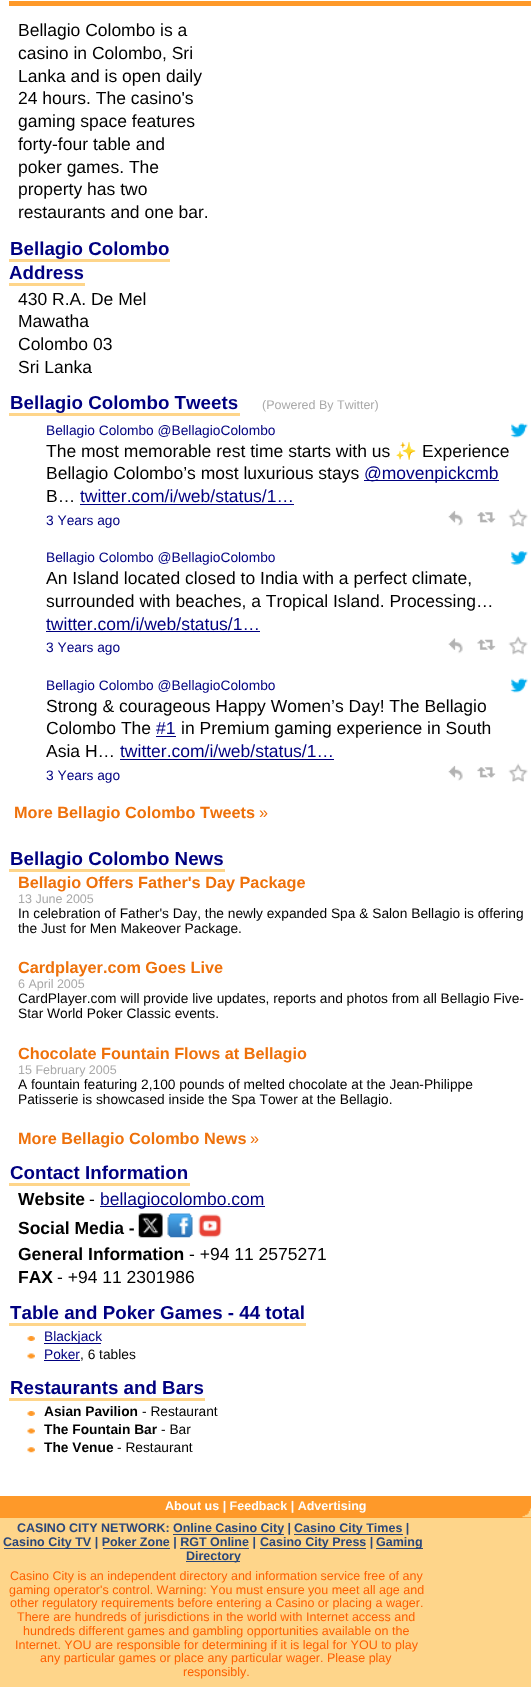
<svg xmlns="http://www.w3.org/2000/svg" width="531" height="1687">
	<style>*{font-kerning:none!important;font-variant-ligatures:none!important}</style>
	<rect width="100%" height="100%" fill="#FFFFFF" />
	<rect x="9" y="1" width="522" height="5" fill="#FE9929" />
	<g font-family="Liberation Sans" font-size="17.5" fill="#000000">
		<text x="18" y="36">Bellagio Colombo is a</text>
		<text x="18" y="59">casino in Colombo, Sri</text>
		<text x="18" y="82">Lanka and is open daily</text>
		<text x="18" y="104">24 hours. The casino's</text>
		<text x="18" y="127">gaming space features</text>
		<text x="18" y="150">forty-four table and</text>
		<text x="18" y="173">poker games. The</text>
		<text x="18" y="195">property has two</text>
		<text x="18" y="218">restaurants and one bar.</text>
	</g>
	<text x="10" y="255" font-family="Liberation Sans" font-size="18.75" font-weight="700" fill="#000080">Bellagio Colombo</text>
	<rect x="9" y="259" width="161" height="3" fill="#FED58A" />
	<text x="9" y="279" font-family="Liberation Sans" font-size="18.75" font-weight="700" fill="#000080">Address</text>
	<rect x="9" y="283" width="76" height="3" fill="#FED58A" />
	<g font-family="Liberation Sans" font-size="17.5" fill="#000000">
		<text x="18" y="305">430 R.A. De Mel</text>
		<text x="18" y="327">Mawatha</text>
		<text x="18" y="350">Colombo 03</text>
		<text x="18" y="373">Sri Lanka</text>
	</g>
	<text x="10" y="409" font-family="Liberation Sans" font-size="18.75" font-weight="700" fill="#000080">Bellagio Colombo Tweets</text>
	<rect x="9" y="413" width="231" height="3" fill="#FED58A" />
	<text x="262" y="409" font-family="Liberation Sans" font-size="12.5" fill="#A9A9A9">(Powered By Twitter)</text>
	<text x="46" y="435" font-family="Liberation Sans" font-size="13.75" fill="#000080">Bellagio Colombo @BellagioColombo</text>
	<image x="510" y="423" width="18" height="15" href="assets/img1.png" />
	<text x="46" y="457" font-family="Liberation Sans" font-size="17.5" fill="#000000">The most memorable rest time starts with us</text>
	<text x="395" y="457" font-family="Noto Color Emoji" font-size="17.5" fill="#000000">✨</text>
	<g font-family="Liberation Sans" font-size="17.5" fill="#000000">
		<text x="422" y="457">Experience</text>
		<text x="46" y="479">Bellagio Colombo’s most luxurious stays</text>
	</g>
	<rect x="364" y="480" width="135" height="1" fill="#000080" />
	<text x="364" y="479" font-family="Liberation Sans" font-size="17.5" fill="#000080">@movenpickcmb</text>
	<text x="46" y="502" font-family="Liberation Sans" font-size="17.5" fill="#000000">B…</text>
	<text x="80" y="502" font-family="Liberation Sans" font-size="17.5" fill="#000080">twitter.com/i/web/status/1…</text>
	<rect x="80" y="504" width="214" height="1" fill="#000080" />
	<text x="46" y="525" font-family="Liberation Sans" font-size="13.75" fill="#000080">3 Years ago</text>
	<image x="448" y="510" width="15" height="16" href="assets/img2.png" />
	<image x="477" y="512" width="19" height="11" href="assets/img3.png" />
	<image x="508" y="508" width="20" height="19" href="assets/img4.png" />
	<text x="46" y="562" font-family="Liberation Sans" font-size="13.75" fill="#000080">Bellagio Colombo @BellagioColombo</text>
	<image x="510" y="551" width="18" height="14" href="assets/img5.png" />
	<g font-family="Liberation Sans" font-size="17.5" fill="#000000">
		<text x="46" y="584">An Island located closed to India with a perfect climate,</text>
		<text x="46" y="607">surrounded with beaches, a Tropical Island. Processing…</text>
	</g>
	<text x="46" y="630" font-family="Liberation Sans" font-size="17.5" fill="#000080">twitter.com/i/web/status/1…</text>
	<rect x="46" y="631" width="214" height="1" fill="#000080" />
	<text x="46" y="652" font-family="Liberation Sans" font-size="13.75" fill="#000080">3 Years ago</text>
	<image x="448" y="638" width="15" height="16" href="assets/img6.png" />
	<image x="477" y="639" width="19" height="11" href="assets/img7.png" />
	<image x="508" y="636" width="20" height="19" href="assets/img8.png" />
	<text x="46" y="690" font-family="Liberation Sans" font-size="13.75" fill="#000080">Bellagio Colombo @BellagioColombo</text>
	<image x="510" y="678" width="18" height="15" href="assets/img1.png" />
	<g font-family="Liberation Sans" font-size="17.5" fill="#000000">
		<text x="46" y="712">Strong &amp; courageous Happy Women’s Day! The Bellagio</text>
		<text x="46" y="734">Colombo The</text>
	</g>
	<text x="156" y="734" font-family="Liberation Sans" font-size="17.5" fill="#000080">#1</text>
	<rect x="156" y="736" width="20" height="1" fill="#000080" />
	<g font-family="Liberation Sans" font-size="17.5" fill="#000000">
		<text x="181" y="734">in Premium gaming experience in South</text>
		<text x="46" y="757">Asia H…</text>
	</g>
	<text x="120" y="757" font-family="Liberation Sans" font-size="17.5" fill="#000080">twitter.com/i/web/status/1…</text>
	<rect x="120" y="759" width="214" height="1" fill="#000080" />
	<text x="46" y="780" font-family="Liberation Sans" font-size="13.75" fill="#000080">3 Years ago</text>
	<image x="448" y="765" width="15" height="16" href="assets/img2.png" />
	<image x="477" y="767" width="19" height="11" href="assets/img3.png" />
	<image x="508" y="763" width="20" height="19" href="assets/img4.png" />
	<text x="14" y="818" font-family="Liberation Sans" font-size="16.25" font-weight="700" fill="#EE710B">More Bellagio Colombo Tweets</text>
	<text x="259" y="818" font-family="Liberation Sans" font-size="16.25" fill="#EE710B">»</text>
	<text x="10" y="865" font-family="Liberation Sans" font-size="18.75" font-weight="700" fill="#000080">Bellagio Colombo News</text>
	<rect x="9" y="869" width="216" height="3" fill="#FED58A" />
	<text x="18" y="888" font-family="Liberation Sans" font-size="16.25" font-weight="700" fill="#EE710B">Bellagio Offers Father's Day Package</text>
	<text x="18" y="903" font-family="Liberation Sans" font-size="12.5" fill="#A9A9A9">13 June 2005</text>
	<g font-family="Liberation Sans" font-size="13.75" fill="#000000">
		<text x="18" y="918">In celebration of Father's Day, the newly expanded Spa &amp; Salon Bellagio is offering</text>
		<text x="18" y="933">the Just for Men Makeover Package.</text>
	</g>
	<text x="18" y="973" font-family="Liberation Sans" font-size="16.25" font-weight="700" fill="#EE710B">Cardplayer.com Goes Live</text>
	<text x="18" y="988" font-family="Liberation Sans" font-size="12.5" fill="#A9A9A9">6 April 2005</text>
	<g font-family="Liberation Sans" font-size="13.75" fill="#000000">
		<text x="18" y="1003">CardPlayer.com will provide live updates, reports and photos from all Bellagio Five-</text>
		<text x="18" y="1018">Star World Poker Classic events.</text>
	</g>
	<text x="18" y="1059" font-family="Liberation Sans" font-size="16.25" font-weight="700" fill="#EE710B">Chocolate Fountain Flows at Bellagio</text>
	<text x="18" y="1074" font-family="Liberation Sans" font-size="12.5" fill="#A9A9A9">15 February 2005</text>
	<g font-family="Liberation Sans" font-size="13.75" fill="#000000">
		<text x="18" y="1089">A fountain featuring 2,100 pounds of melted chocolate at the Jean-Philippe</text>
		<text x="18" y="1104">Patisserie is showcased inside the Spa Tower at the Bellagio.</text>
	</g>
	<text x="18" y="1144" font-family="Liberation Sans" font-size="16.25" font-weight="700" fill="#EE710B">More Bellagio Colombo News</text>
	<text x="250" y="1144" font-family="Liberation Sans" font-size="16.25" fill="#EE710B">»</text>
	<text x="10" y="1179" font-family="Liberation Sans" font-size="18.75" font-weight="700" fill="#000080">Contact Information</text>
	<rect x="9" y="1183" width="181" height="3" fill="#FED58A" />
	<text x="18" y="1205" font-family="Liberation Sans" font-size="17.5" font-weight="700" fill="#000000">Website</text>
	<text x="89" y="1205" font-family="Liberation Sans" font-size="17.5" fill="#000000">-</text>
	<rect x="100" y="1206" width="165" height="1" fill="#000080" />
	<text x="100" y="1205" font-family="Liberation Sans" font-size="17.5" fill="#000080">bellagiocolombo.com</text>
	<text x="18" y="1234" font-family="Liberation Sans" font-size="17.5" font-weight="700" fill="#000000">Social Media -</text>
	<image x="138" y="1213" width="25" height="25" href="assets/img9.png" />
	<image x="167" y="1213" width="26" height="25" href="assets/img10.png" />
	<image x="198" y="1214" width="24" height="24" href="assets/img11.png" />
	<text x="18" y="1260" font-family="Liberation Sans" font-size="17.5" font-weight="700" fill="#000000">General Information</text>
	<text x="189" y="1260" font-family="Liberation Sans" font-size="17.5" fill="#000000">- +94 11 2575271</text>
	<text x="18" y="1283" font-family="Liberation Sans" font-size="17.5" font-weight="700" fill="#000000">FAX</text>
	<text x="57" y="1283" font-family="Liberation Sans" font-size="17.5" fill="#000000">- +94 11 2301986</text>
	<text x="10" y="1319" font-family="Liberation Sans" font-size="18.75" font-weight="700" fill="#000080">Table and Poker Games - 44 total</text>
	<rect x="9" y="1323" width="297" height="3" fill="#FED58A" />
	<image x="27" y="1336" width="8" height="5" href="assets/img12.png" />
	<rect x="44" y="1343" width="57" height="1" fill="#000080" />
	<text x="44" y="1341" font-family="Liberation Sans" font-size="13.75" fill="#000080">Blackjack</text>
	<image x="27" y="1353" width="8" height="6" href="assets/img13.png" />
	<text x="44" y="1359" font-family="Liberation Sans" font-size="13.75" fill="#000080">Poker</text>
	<rect x="44" y="1360" width="36" height="1" fill="#000080" />
	<text x="80" y="1359" font-family="Liberation Sans" font-size="13.75" fill="#000000">, 6 tables</text>
	<text x="10" y="1394" font-family="Liberation Sans" font-size="18.75" font-weight="700" fill="#000080">Restaurants and Bars</text>
	<rect x="9" y="1398" width="196" height="3" fill="#FED58A" />
	<image x="27" y="1411" width="8" height="5" href="assets/img12.png" />
	<text x="44" y="1416" font-family="Liberation Sans" font-size="13.75" font-weight="700" fill="#000000">Asian Pavilion</text>
	<text x="142" y="1416" font-family="Liberation Sans" font-size="13.75" fill="#000000">- Restaurant</text>
	<image x="27" y="1428" width="8" height="6" href="assets/img13.png" />
	<text x="44" y="1434" font-family="Liberation Sans" font-size="13.75" font-weight="700" fill="#000000">The Fountain Bar</text>
	<text x="161" y="1434" font-family="Liberation Sans" font-size="13.75" fill="#000000">- Bar</text>
	<image x="27" y="1447" width="8" height="6" href="assets/img14.png" />
	<text x="44" y="1452" font-family="Liberation Sans" font-size="13.75" font-weight="700" fill="#000000">The Venue</text>
	<text x="117" y="1452" font-family="Liberation Sans" font-size="13.75" fill="#000000">- Restaurant</text>
	<rect x="0" y="1496" width="531" height="22" fill="#FE9929" />
	<image x="522" y="1508" width="9" height="10" href="assets/img15.png" />
	<text x="165" y="1510" font-family="Liberation Sans" font-size="12.5" font-weight="700" fill="#FFFFFF">About us | Feedback | Advertising</text>
	<rect x="0" y="1518" width="531" height="169" fill="#FED58A" />
	<text x="17" y="1532" font-family="Liberation Sans" font-size="12.5" font-weight="700" fill="#2A4679">CASINO CITY NETWORK:</text>
	<rect x="173" y="1534" width="111" height="1" fill="#2A4679" />
	<text x="173" y="1532" font-family="Liberation Sans" font-size="12.5" font-weight="700" fill="#2A4679">Online Casino City |</text>
	<rect x="294" y="1534" width="109" height="1" fill="#2A4679" />
	<text x="294" y="1532" font-family="Liberation Sans" font-size="12.5" font-weight="700" fill="#2A4679">Casino City Times |</text>
	<rect x="4" y="1548" width="87" height="1" fill="#2A4679" />
	<text x="3" y="1546" font-family="Liberation Sans" font-size="12.5" font-weight="700" fill="#2A4679">Casino City TV | Poker Zone | RGT Online |</text>
	<rect x="260" y="1548" width="106" height="1" fill="#2A4679" />
	<text x="260" y="1546" font-family="Liberation Sans" font-size="12.5" font-weight="700" fill="#2A4679">Casino City Press |</text>
	<rect x="376" y="1548" width="47" height="1" fill="#2A4679" />
	<text x="376" y="1546" font-family="Liberation Sans" font-size="12.5" font-weight="700" fill="#2A4679">Gaming</text>
	<rect x="103" y="1548" width="67" height="1" fill="#2A4679" />
	<rect x="180" y="1548" width="69" height="1" fill="#2A4679" />
	<rect x="186" y="1561" width="54" height="1" fill="#2A4679" />
	<text x="186" y="1560" font-family="Liberation Sans" font-size="12.5" font-weight="700" fill="#2A4679">Directory</text>
	<g font-family="Liberation Sans" font-size="12.5" fill="#FD6002">
		<text x="10" y="1580">Casino City is an independent directory and information service free of any</text>
		<text x="9" y="1594">gaming operator's control. Warning: You must ensure you meet all age and</text>
		<text x="10" y="1607">other regulatory requirements before entering a Casino or placing a wager.</text>
		<text x="17" y="1621">There are hundreds of jurisdictions in the world with Internet access and</text>
		<text x="23" y="1635">hundreds different games and gambling opportunities available on the</text>
		<text x="15" y="1649">Internet. YOU are responsible for determining if it is legal for YOU to play</text>
		<text x="40" y="1662">any particular games or place any particular wager. Please play</text>
		<text x="183" y="1676">responsibly.</text>
	</g>
</svg>
